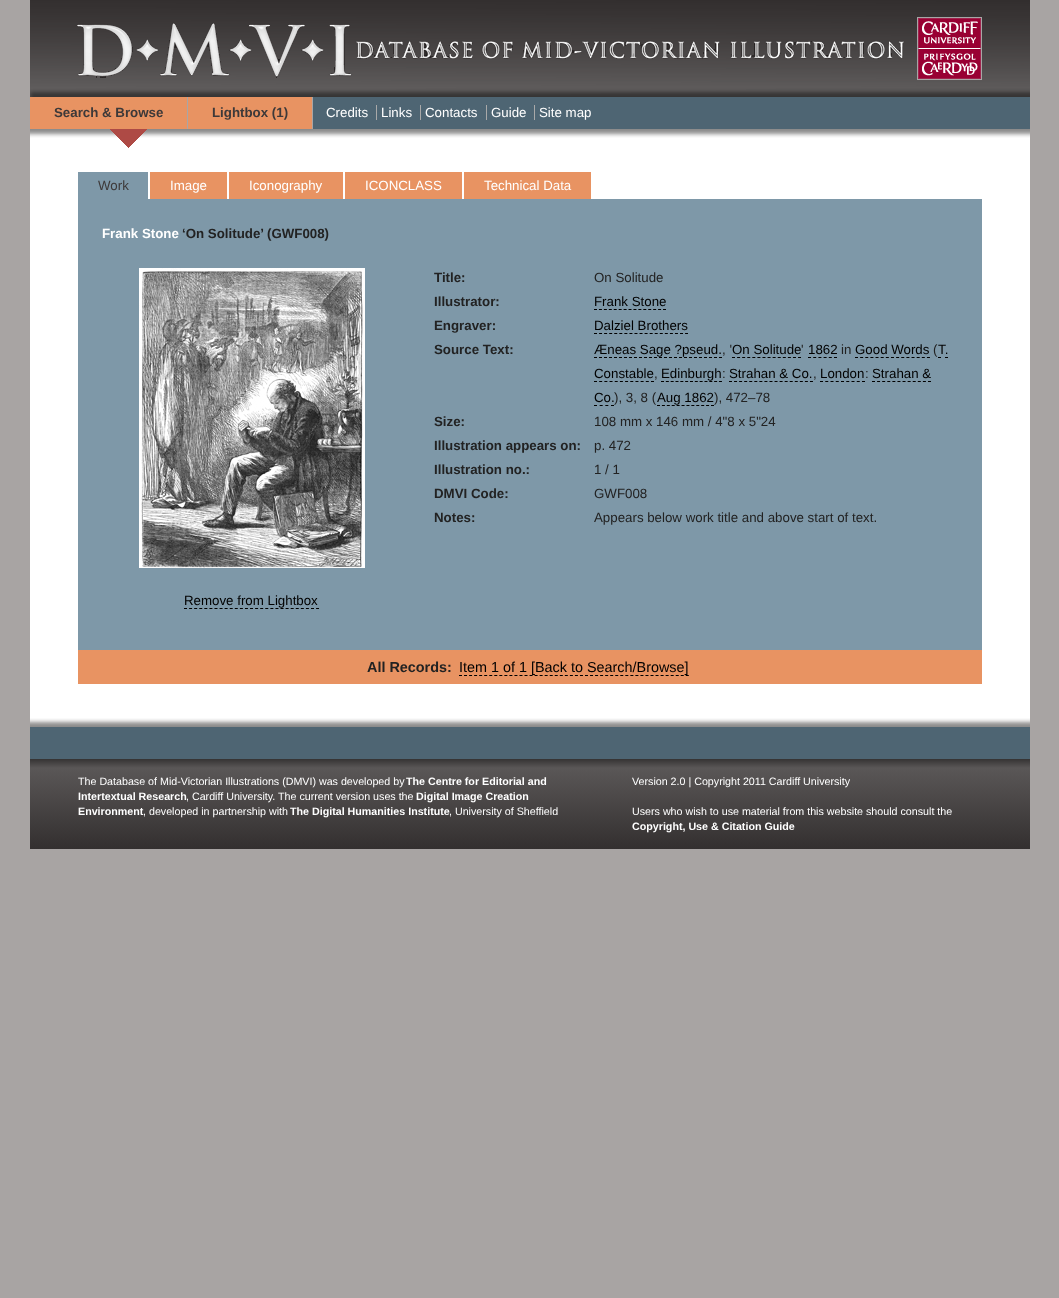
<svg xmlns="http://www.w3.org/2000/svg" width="1059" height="1298">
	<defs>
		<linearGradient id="g1" gradientUnits="userSpaceOnUse" x1="530" y1="759" x2="530" y2="849"><stop offset="0" stop-color="#353333" /><stop offset="0.1" stop-color="#5A5757" /><stop offset="1" stop-color="#332F2F" /></linearGradient>
	</defs>
	<rect width="100%" height="100%" fill="#A8A4A3" />
	<rect x="30" y="138" width="1000" height="580" fill="#FFFFFF" />
	<image x="30" y="0" width="1000" height="97" href="assets/img1.png" />
	<rect x="313" y="97" width="717" height="32" fill="#4E6573" />
	<rect x="30" y="97" width="157" height="32" fill="#E89362" />
	<rect x="187" y="97" width="1" height="32" fill="#A8A6A6" />
	<text x="54" y="117" font-family="Liberation Sans" font-size="13.3" font-weight="700" fill="#3D3939">Search &amp; Browse</text>
	<rect x="188" y="97" width="124" height="32" fill="#E89362" />
	<rect x="312" y="97" width="1" height="32" fill="#A8A6A6" />
	<text x="212" y="117" font-family="Liberation Sans" font-size="13.3" font-weight="700" fill="#3D3939">Lightbox (1)</text>
	<g font-family="Liberation Sans" font-size="13.3" fill="#FFFFFF">
		<text x="326" y="117">Credits</text>
		<text x="381" y="117">Links</text>
	</g>
	<rect x="376" y="105" width="1" height="15" fill="#A9A9A9" />
	<text x="425" y="117" font-family="Liberation Sans" font-size="13.3" fill="#FFFFFF">Contacts</text>
	<rect x="420" y="105" width="1" height="15" fill="#A9A9A9" />
	<text x="491" y="117" font-family="Liberation Sans" font-size="13.3" fill="#FFFFFF">Guide</text>
	<rect x="486" y="105" width="1" height="15" fill="#A9A9A9" />
	<text x="539" y="117" font-family="Liberation Sans" font-size="13.3" fill="#FFFFFF">Site map</text>
	<rect x="534" y="105" width="1" height="15" fill="#A9A9A9" />
	<image x="30" y="129" width="1000" height="9" href="assets/img2.png" />
	<image x="110" y="129" width="37" height="19" href="assets/img3.png" />
	<rect x="78" y="172" width="70" height="27" fill="#7E98A8" />
	<text x="98" y="190" font-family="Liberation Sans" font-size="13.3" fill="#3D3939">Work</text>
	<rect x="150" y="172" width="77" height="27" fill="#E89362" />
	<text x="170" y="190" font-family="Liberation Sans" font-size="13.3" fill="#FFFFFF">Image</text>
	<rect x="229" y="172" width="114" height="27" fill="#E89362" />
	<text x="249" y="190" font-family="Liberation Sans" font-size="13.3" fill="#FFFFFF">Iconography</text>
	<rect x="345" y="172" width="117" height="27" fill="#E89362" />
	<text x="365" y="190" font-family="Liberation Sans" font-size="13.3" fill="#FFFFFF">ICONCLASS</text>
	<rect x="464" y="172" width="127" height="27" fill="#E89362" />
	<text x="484" y="190" font-family="Liberation Sans" font-size="13.3" fill="#FFFFFF">Technical Data</text>
	<rect x="78" y="199" width="904" height="451" fill="#7E98A8" />
	<text x="102" y="238" font-family="Liberation Sans" font-size="13.3" font-weight="700" fill="#FFFFFF">Frank Stone</text>
	<g font-family="Liberation Sans" font-size="13.3" font-weight="700" fill="#222222">
		<text x="182" y="238">‘On Solitude’ (GWF008)</text>
		<text x="434" y="282">Title:</text>
	</g>
	<text x="594" y="282" font-family="Liberation Sans" font-size="13.3" fill="#222222">On Solitude</text>
	<text x="434" y="306" font-family="Liberation Sans" font-size="13.3" font-weight="700" fill="#222222">Illustrator:</text>
	<text x="594" y="306" font-family="Liberation Sans" font-size="13.3" fill="#000000">Frank Stone</text>
	<path d="M594 309.5H666" fill="none" stroke="#000000" stroke-dasharray="3 1.93" />
	<text x="434" y="330" font-family="Liberation Sans" font-size="13.3" font-weight="700" fill="#222222">Engraver:</text>
	<text x="594" y="330" font-family="Liberation Sans" font-size="13.3" fill="#000000">Dalziel Brothers</text>
	<path d="M594 333.5H688" fill="none" stroke="#000000" stroke-dasharray="3 2.06" />
	<text x="434" y="354" font-family="Liberation Sans" font-size="13.3" font-weight="700" fill="#222222">Source Text:</text>
	<text x="594" y="354" font-family="Liberation Sans" font-size="13.3" fill="#000000">Æneas Sage ?pseud.</text>
	<path d="M594 357.5H722" fill="none" stroke="#000000" stroke-dasharray="3 2" />
	<text x="722" y="354" font-family="Liberation Sans" font-size="13.3" fill="#222222">, '</text>
	<text x="732" y="354" font-family="Liberation Sans" font-size="13.3" fill="#000000">On Solitude</text>
	<path d="M732 357.5H801" fill="none" stroke="#000000" stroke-dasharray="3 2.08" />
	<text x="801" y="354" font-family="Liberation Sans" font-size="13.3" fill="#222222">'</text>
	<text x="808" y="354" font-family="Liberation Sans" font-size="13.3" fill="#000000">1862</text>
	<path d="M808 357.5H837" fill="none" stroke="#000000" stroke-dasharray="3 2.2" />
	<text x="841" y="354" font-family="Liberation Sans" font-size="13.3" fill="#222222">in</text>
	<text x="855" y="354" font-family="Liberation Sans" font-size="13.3" fill="#000000">Good Words</text>
	<path d="M855 357.5H930" fill="none" stroke="#000000" stroke-dasharray="3 2.14" />
	<text x="933" y="354" font-family="Liberation Sans" font-size="13.3" fill="#222222">(</text>
	<text x="938" y="354" font-family="Liberation Sans" font-size="13.3" fill="#000000">T.</text>
	<path d="M938 357.5H941M945 357.5H948" fill="none" stroke="#000000" />
	<text x="594" y="378" font-family="Liberation Sans" font-size="13.3" fill="#000000">Constable</text>
	<path d="M594 381.5H654" fill="none" stroke="#000000" stroke-dasharray="3 2.18" />
	<text x="654" y="378" font-family="Liberation Sans" font-size="13.3" fill="#222222">,</text>
	<text x="661" y="378" font-family="Liberation Sans" font-size="13.3" fill="#000000">Edinburgh</text>
	<path d="M661 381.5H722" fill="none" stroke="#000000" stroke-dasharray="3 1.83" />
	<text x="722" y="378" font-family="Liberation Sans" font-size="13.3" fill="#222222">:</text>
	<text x="729" y="378" font-family="Liberation Sans" font-size="13.3" fill="#000000">Strahan &amp; Co.</text>
	<path d="M729 381.5H813" fill="none" stroke="#000000" stroke-dasharray="3 2.06" />
	<text x="813" y="378" font-family="Liberation Sans" font-size="13.3" fill="#222222">,</text>
	<text x="820" y="378" font-family="Liberation Sans" font-size="13.3" fill="#000000">London</text>
	<path d="M820 381.5H865" fill="none" stroke="#000000" stroke-dasharray="3 2.25" />
	<text x="865" y="378" font-family="Liberation Sans" font-size="13.3" fill="#222222">:</text>
	<text x="872" y="378" font-family="Liberation Sans" font-size="13.3" fill="#000000">Strahan &amp;</text>
	<path d="M872 381.5H931" fill="none" stroke="#000000" stroke-dasharray="3 2.09" />
	<text x="594" y="402" font-family="Liberation Sans" font-size="13.3" fill="#000000">Co.</text>
	<path d="M594 405.5H614" fill="none" stroke="#000000" stroke-dasharray="3 2.67" />
	<text x="614" y="402" font-family="Liberation Sans" font-size="13.3" fill="#222222">), 3, 8 (</text>
	<text x="657" y="402" font-family="Liberation Sans" font-size="13.3" fill="#000000">Aug 1862</text>
	<path d="M657 405.5H714" fill="none" stroke="#000000" stroke-dasharray="3 1.91" />
	<text x="714" y="402" font-family="Liberation Sans" font-size="13.3" fill="#222222">), 472–78</text>
	<text x="434" y="426" font-family="Liberation Sans" font-size="13.3" font-weight="700" fill="#222222">Size:</text>
	<text x="594" y="426" font-family="Liberation Sans" font-size="13.3" fill="#222222">108 mm x 146 mm / 4"8 x 5"24</text>
	<text x="434" y="450" font-family="Liberation Sans" font-size="13.3" font-weight="700" fill="#222222">Illustration appears on:</text>
	<text x="594" y="450" font-family="Liberation Sans" font-size="13.3" fill="#222222">p. 472</text>
	<text x="434" y="474" font-family="Liberation Sans" font-size="13.3" font-weight="700" fill="#222222">Illustration no.:</text>
	<text x="594" y="474" font-family="Liberation Sans" font-size="13.3" fill="#222222">1 / 1</text>
	<text x="434" y="498" font-family="Liberation Sans" font-size="13.3" font-weight="700" fill="#222222">DMVI Code:</text>
	<text x="594" y="498" font-family="Liberation Sans" font-size="13.3" fill="#222222">GWF008</text>
	<text x="434" y="522" font-family="Liberation Sans" font-size="13.3" font-weight="700" fill="#222222">Notes:</text>
	<text x="594" y="522" font-family="Liberation Sans" font-size="13.3" fill="#222222">Appears below work title and above start of text.</text>
	<image x="139" y="268" width="226" height="300" href="assets/img4.png" />
	<text x="184" y="605" font-family="Liberation Sans" font-size="13.3" fill="#000000">Remove from Lightbox</text>
	<path d="M184 608.5H319" fill="none" stroke="#000000" stroke-dasharray="3 2.08" />
	<rect x="78" y="650" width="904" height="34" fill="#E89362" />
	<text x="367" y="672" font-family="Liberation Sans" font-size="14.4" font-weight="700" fill="#222222">All Records:</text>
	<text x="459" y="672" font-family="Liberation Sans" font-size="14.4" fill="#000000">Item 1 of 1 [Back to Search/Browse]</text>
	<path d="M459 675.5H689" fill="none" stroke="#000000" stroke-dasharray="3 2.04" />
	<image x="30" y="718" width="1000" height="9" href="assets/img5.png" />
	<rect x="30" y="727" width="1000" height="32" fill="#4E6573" />
	<rect x="30" y="759" width="1000" height="90" fill="url(#g1)" />
	<text x="78" y="785" font-family="Liberation Sans" font-size="10.7" fill="#FFFFFF">The Database of Mid-Victorian Illustrations (DMVI) was developed by</text>
	<g font-family="Liberation Sans" font-size="10.7" font-weight="700" fill="#FFFFFF">
		<text x="406" y="785">The Centre for Editorial and</text>
		<text x="78" y="800">Intertextual Research</text>
	</g>
	<text x="186" y="800" font-family="Liberation Sans" font-size="10.7" fill="#FFFFFF">, Cardiff University. The current version uses the</text>
	<g font-family="Liberation Sans" font-size="10.7" font-weight="700" fill="#FFFFFF">
		<text x="416" y="800">Digital Image Creation</text>
		<text x="78" y="815">Environment</text>
	</g>
	<text x="143" y="815" font-family="Liberation Sans" font-size="10.7" fill="#FFFFFF">, developed in partnership with</text>
	<text x="290" y="815" font-family="Liberation Sans" font-size="10.7" font-weight="700" fill="#FFFFFF">The Digital Humanities Institute</text>
	<g font-family="Liberation Sans" font-size="10.7" fill="#FFFFFF">
		<text x="449" y="815">, University of Sheffield</text>
		<text x="632" y="785">Version 2.0 | Copyright 2011 Cardiff University</text>
		<text x="632" y="815">Users who wish to use material from this website should consult the</text>
	</g>
	<text x="632" y="830" font-family="Liberation Sans" font-size="10.7" font-weight="700" fill="#FFFFFF">Copyright, Use &amp; Citation Guide</text>
</svg>
